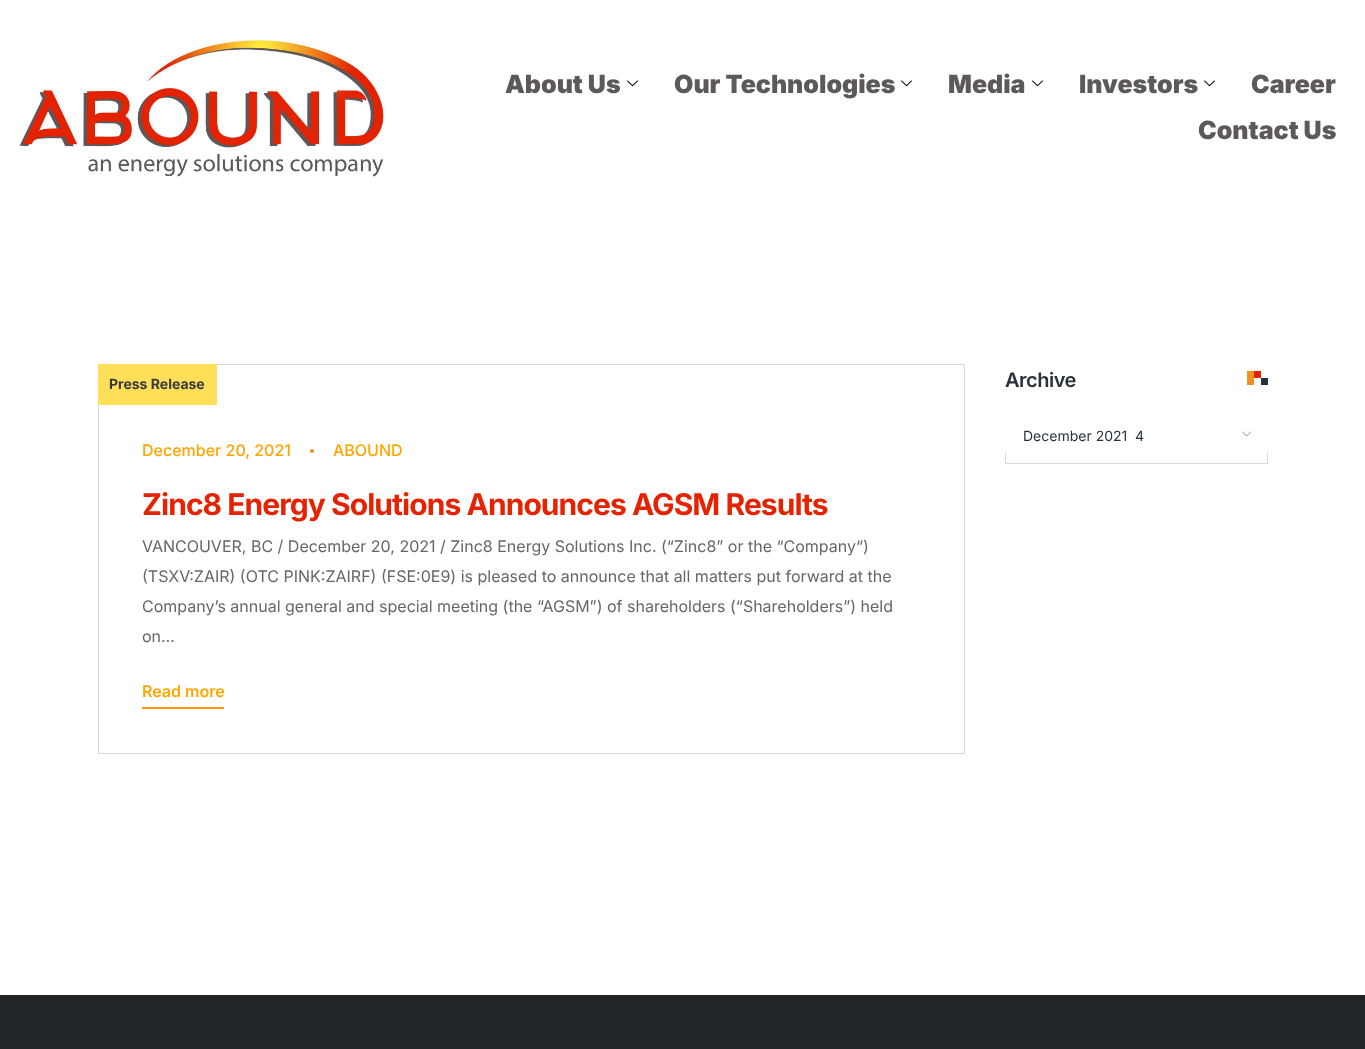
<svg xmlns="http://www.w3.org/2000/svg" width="1365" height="1049">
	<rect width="100%" height="100%" fill="#FFFFFF" />
	<image x="19" y="38" width="366" height="139" href="assets/img1.png" />
	<text x="505" y="93" font-family="Inter" font-size="25" font-weight="900" fill="#5D595A">About Us</text>
	<image x="627" y="80" width="11" height="7" href="assets/img2.png" />
	<text x="674" y="93" font-family="Inter" font-size="25" font-weight="900" fill="#5D595A">Our Technologies</text>
	<image x="901" y="80" width="11" height="7" href="assets/img2.png" />
	<text x="948" y="93" font-family="Inter" font-size="25" font-weight="900" fill="#5D595A">Media</text>
	<image x="1032" y="80" width="11" height="7" href="assets/img2.png" />
	<text x="1079" y="93" font-family="Inter" font-size="25" font-weight="900" fill="#5D595A">Investors</text>
	<image x="1204" y="80" width="11" height="7" href="assets/img2.png" />
	<g font-family="Inter" font-size="25" font-weight="900" fill="#5D595A">
		<text x="1251" y="93">Career</text>
		<text x="1198" y="139">Contact Us</text>
	</g>
	<rect x="98.5" y="364.5" width="866" height="389" fill="none" stroke="#D9D9D9" />
	<rect x="98" y="364" width="119" height="41" fill="#FFDF57" />
	<text x="109" y="389" font-family="Inter" font-size="14" font-weight="700" fill="#393A3C">Press Release</text>
	<text x="142" y="456" font-family="Inter" font-size="16" font-weight="500" fill="#FFA500">December 20, 2021</text>
	<circle cx="312" cy="451" r="2" fill="#F29222" />
	<text x="333" y="456" font-family="Inter" font-size="16" font-weight="500" fill="#FFA500">ABOUND</text>
	<text x="142" y="515" font-family="Inter" font-size="30" font-weight="700" letter-spacing="-0.95" fill="#E52202">Zinc8 Energy Solutions Announces AGSM Results</text>
	<g font-family="Inter" font-size="16" fill="#666666">
		<text x="142" y="552">VANCOUVER, BC / December 20, 2021 / Zinc8 Energy Solutions Inc. (“Zinc8” or the “Company“)</text>
		<text x="142" y="582">(TSXV:ZAIR) (OTC PINK:ZAIRF) (FSE:0E9) is pleased to announce that all matters put forward at the</text>
		<text x="142" y="612">Company’s annual general and special meeting (the “AGSM”) of shareholders (“Shareholders”) held</text>
		<text x="142" y="642">on…</text>
	</g>
	<rect x="142" y="707" width="82" height="2" fill="#FF9900" />
	<text x="142" y="697" font-family="Inter" font-size="16" font-weight="600" fill="#FFA500">Read more</text>
	<text x="1005" y="387" font-family="Inter" font-size="20" font-weight="600" letter-spacing="-0.5" fill="#27333A">Archive</text>
	<rect x="1247" y="371" width="7" height="14" fill="#F29222" />
	<rect x="1254" y="371" width="7" height="7" fill="#E52202" />
	<rect x="1261" y="378" width="7" height="7" fill="#27333A" />
	<text x="1023" y="441" font-family="Inter" font-size="14" fill="#27333A" xml:space="preserve">December 2021  4</text>
	<image x="1242" y="431" width="9" height="6" href="assets/img3.png" />
	<rect x="1267" y="453" width="1" height="11" fill="#D9D9D9" />
	<rect x="1005" y="463" width="263" height="1" fill="#D9D9D9" />
	<rect x="1005" y="453" width="1" height="10" fill="#D9D9D9" />
	<rect x="0" y="995" width="1365" height="54" fill="#222629" />
</svg>
